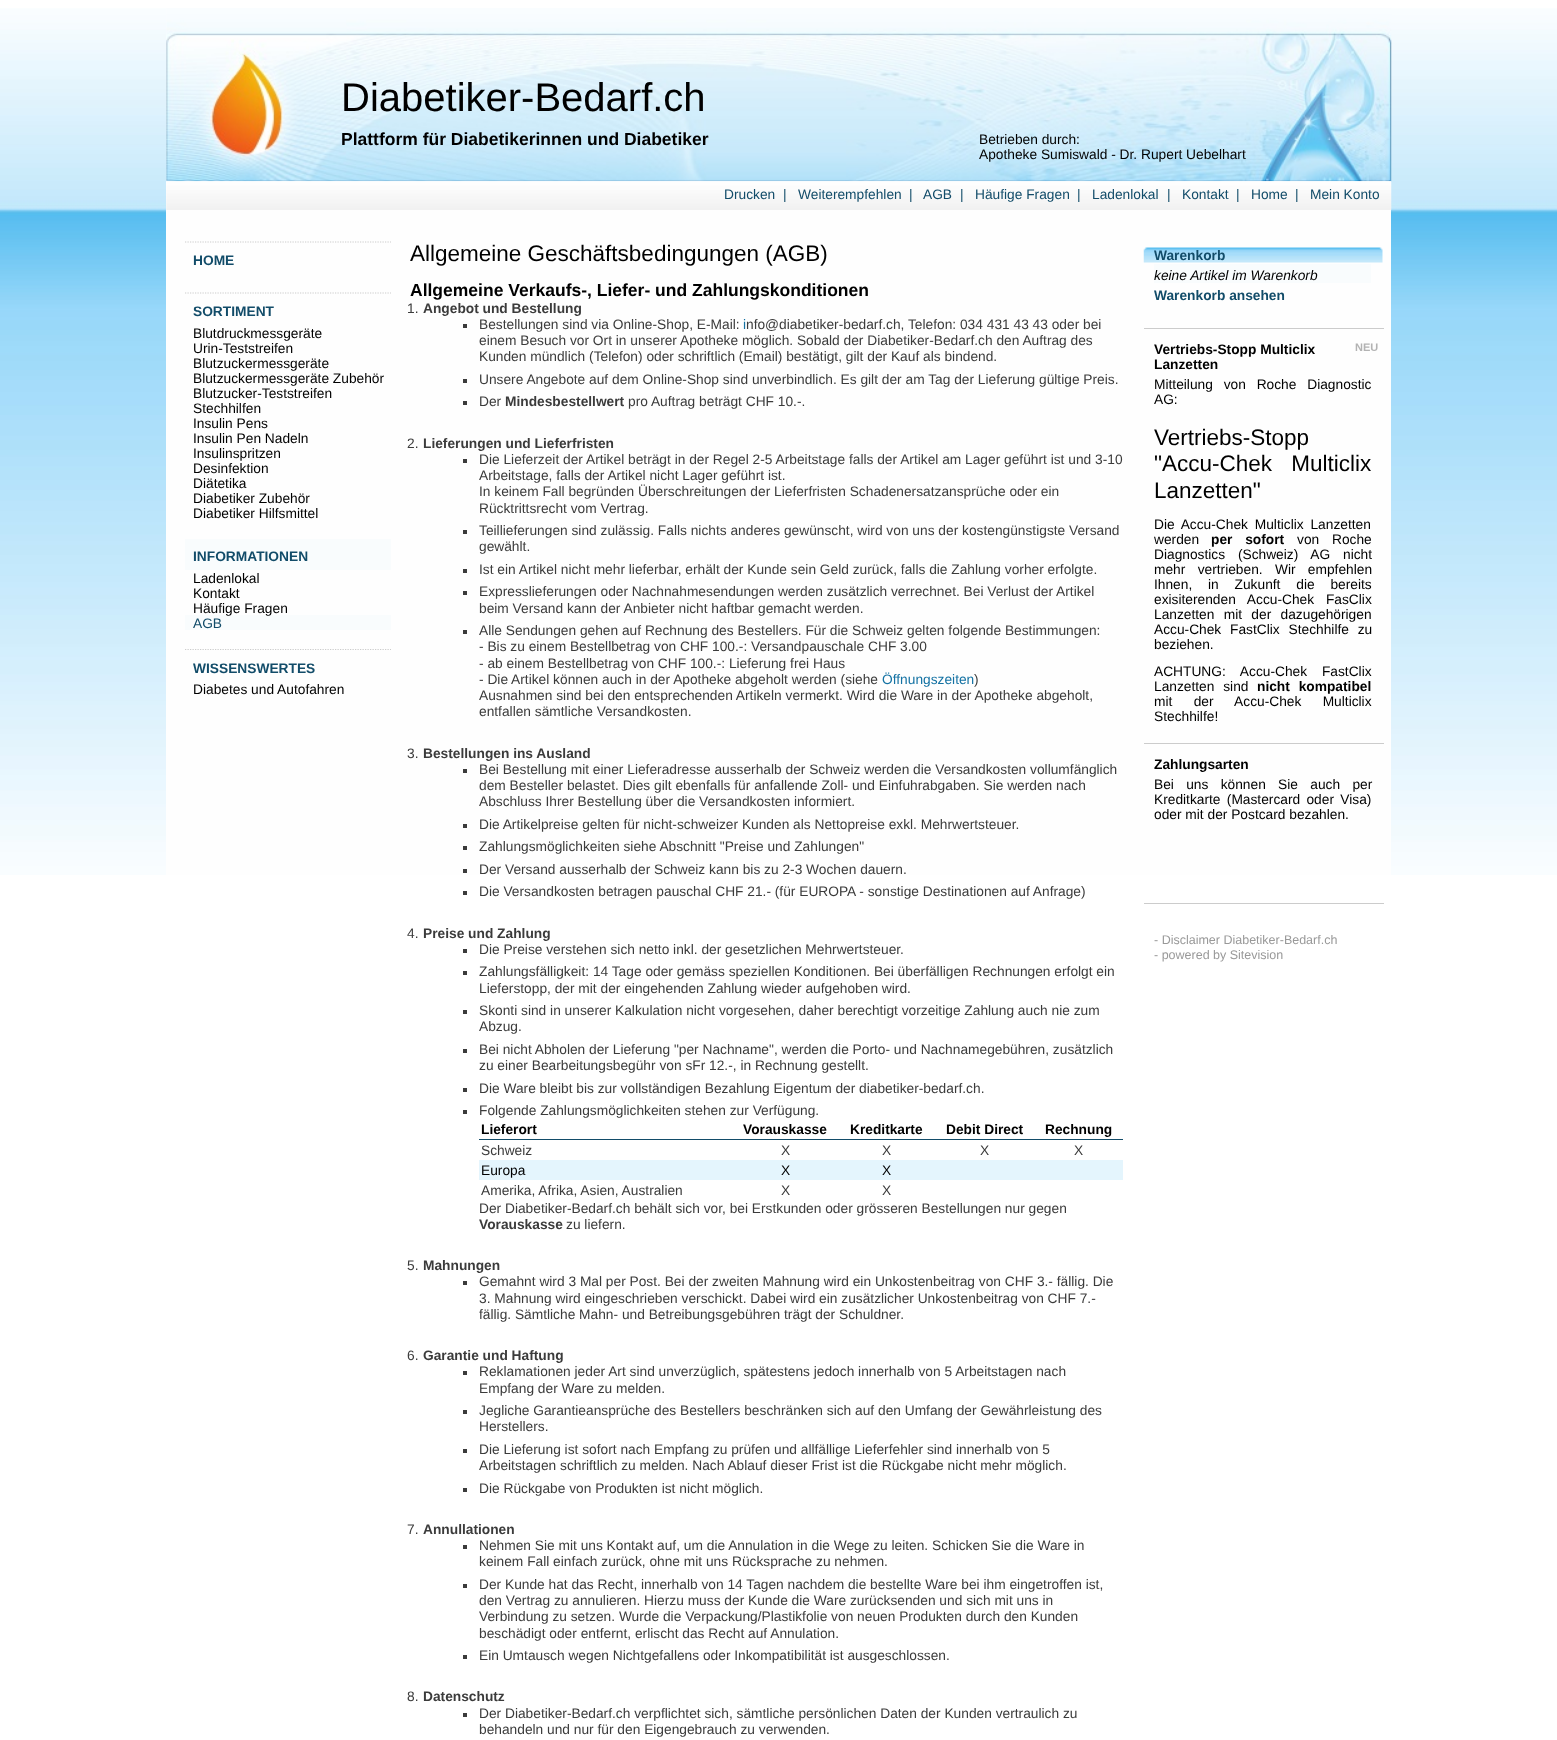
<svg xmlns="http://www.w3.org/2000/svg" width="1557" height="1740">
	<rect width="100%" height="100%" fill="#FFFFFF" />
	<image x="0" y="8" width="1557" height="867" href="assets/img1.png" />
	<rect x="166" y="8" width="1225" height="202" fill="#FFFFFF" />
	<image x="166" y="8" width="1226" height="174" href="assets/img2.png" />
	<text x="341" y="111" font-family="Liberation Sans" font-size="40" fill="#000000">Diabetiker-Bedarf.ch</text>
	<text x="341" y="145" font-family="Liberation Sans" font-size="17.5" font-weight="700" fill="#000000">Plattform für Diabetikerinnen und Diabetiker</text>
	<g font-family="Liberation Sans" font-size="13.75" fill="#000000">
		<text x="979" y="144">Betrieben durch:</text>
		<text x="979" y="159">Apotheke Sumiswald - Dr. Rupert Uebelhart</text>
	</g>
	<image x="166" y="181" width="1226" height="29" href="assets/img3.png" />
	<g font-family="Liberation Sans" font-size="13.75" fill="#124C69">
		<text x="724" y="199">Drucken</text>
		<text x="783" y="199">|</text>
		<text x="798" y="199">Weiterempfehlen</text>
		<text x="909" y="199">|</text>
		<text x="923" y="199">AGB</text>
		<text x="960" y="199">|</text>
		<text x="975" y="199">Häufige Fragen</text>
		<text x="1077" y="199">|</text>
		<text x="1092" y="199">Ladenlokal</text>
		<text x="1167" y="199">|</text>
		<text x="1182" y="199">Kontakt</text>
		<text x="1236" y="199">|</text>
		<text x="1251" y="199">Home</text>
		<text x="1295" y="199">|</text>
		<text x="1310" y="199">Mein Konto</text>
	</g>
	<rect x="166" y="210" width="1225" height="665" fill="#FEFEFE" />
	<path d="M185 242H391" fill="none" stroke="#CCCCCC" stroke-width="1.2" stroke-dasharray="1.25 1.25" />
	<text x="193" y="265" font-family="Liberation Sans" font-size="13.75" font-weight="700" fill="#124C69">HOME</text>
	<path d="M185 293H391" fill="none" stroke="#CCCCCC" stroke-width="1.2" stroke-dasharray="1.25 1.25" />
	<text x="193" y="316" font-family="Liberation Sans" font-size="13.75" font-weight="700" fill="#124C69">SORTIMENT</text>
	<g font-family="Liberation Sans" font-size="13.75" fill="#000000">
		<text x="193" y="338">Blutdruckmessgeräte</text>
		<text x="193" y="353">Urin-Teststreifen</text>
		<text x="193" y="368">Blutzuckermessgeräte</text>
		<text x="193" y="383">Blutzuckermessgeräte Zubehör</text>
		<text x="193" y="398">Blutzucker-Teststreifen</text>
		<text x="193" y="413">Stechhilfen</text>
		<text x="193" y="428">Insulin Pens</text>
		<text x="193" y="443">Insulin Pen Nadeln</text>
		<text x="193" y="458">Insulinspritzen</text>
		<text x="193" y="473">Desinfektion</text>
		<text x="193" y="488">Diätetika</text>
		<text x="193" y="503">Diabetiker Zubehör</text>
		<text x="193" y="518">Diabetiker Hilfsmittel</text>
	</g>
	<rect x="185" y="539" width="206" height="31" fill="#F9FCFD" />
	<text x="193" y="561" font-family="Liberation Sans" font-size="13.75" font-weight="700" fill="#124C69">INFORMATIONEN</text>
	<g font-family="Liberation Sans" font-size="13.75" fill="#000000">
		<text x="193" y="583">Ladenlokal</text>
		<text x="193" y="598">Kontakt</text>
	</g>
	<rect x="185" y="615" width="206" height="15" fill="#F9FCFD" />
	<text x="193" y="613" font-family="Liberation Sans" font-size="13.75" fill="#000000">Häufige Fragen</text>
	<text x="193" y="628" font-family="Liberation Sans" font-size="13.75" fill="#124C69">AGB</text>
	<path d="M185 649.5H391" fill="none" stroke="#CCCCCC" stroke-width="1.2" stroke-dasharray="1.25 1.25" />
	<text x="193" y="673" font-family="Liberation Sans" font-size="13.75" font-weight="700" fill="#124C69">WISSENSWERTES</text>
	<text x="193" y="694" font-family="Liberation Sans" font-size="13.75" fill="#000000">Diabetes und Autofahren</text>
	<text x="410" y="261" font-family="Liberation Sans" font-size="22.5" fill="#000000">Allgemeine Geschäftsbedingungen (AGB)</text>
	<text x="410" y="296" font-family="Liberation Sans" font-size="17.5" font-weight="700" fill="#000000">Allgemeine Verkaufs-, Liefer- und Zahlungskonditionen</text>
	<text x="407" y="313" font-family="Liberation Sans" font-size="13.75" fill="#3B3B3B">1.</text>
	<text x="423" y="313" font-family="Liberation Sans" font-size="13.75" font-weight="700" fill="#3B3B3B">Angebot und Bestellung</text>
	<rect x="463" y="324" width="4" height="4" fill="#3B3B3B" />
	<text x="479" y="329" font-family="Liberation Sans" font-size="13.75" fill="#3B3B3B">Bestellungen sind via Online-Shop, E-Mail:</text>
	<text x="743" y="329" font-family="Liberation Sans" font-size="13.75" fill="#1472A3">i</text>
	<g font-family="Liberation Sans" font-size="13.75" fill="#3B3B3B">
		<text x="746" y="329">nfo@diabetiker-bedarf.ch, Telefon: 034 431 43 43 oder bei</text>
		<text x="479" y="345">einem Besuch vor Ort in unserer Apotheke möglich. Sobald der Diabetiker-Bedarf.ch den Auftrag des</text>
		<text x="479" y="361">Kunden mündlich (Telefon) oder schriftlich (Email) bestätigt, gilt der Kauf als bindend.</text>
	</g>
	<rect x="463" y="379" width="4" height="4" fill="#3B3B3B" />
	<text x="479" y="384" font-family="Liberation Sans" font-size="13.75" fill="#3B3B3B">Unsere Angebote auf dem Online-Shop sind unverbindlich. Es gilt der am Tag der Lieferung gültige Preis.</text>
	<rect x="463" y="401" width="4" height="4" fill="#3B3B3B" />
	<text x="479" y="406" font-family="Liberation Sans" font-size="13.75" fill="#3B3B3B">Der</text>
	<text x="505" y="406" font-family="Liberation Sans" font-size="13.75" font-weight="700" fill="#3B3B3B">Mindesbestellwert</text>
	<g font-family="Liberation Sans" font-size="13.75" fill="#3B3B3B">
		<text x="628" y="406">pro Auftrag beträgt CHF 10.-.</text>
		<text x="407" y="448">2.</text>
	</g>
	<text x="423" y="448" font-family="Liberation Sans" font-size="13.75" font-weight="700" fill="#3B3B3B">Lieferungen und Lieferfristen</text>
	<rect x="463" y="459" width="4" height="4" fill="#3B3B3B" />
	<g font-family="Liberation Sans" font-size="13.75" fill="#3B3B3B">
		<text x="479" y="464">Die Lieferzeit der Artikel beträgt in der Regel 2-5 Arbeitstage falls der Artikel am Lager geführt ist und 3-10</text>
		<text x="479" y="480">Arbeitstage, falls der Artikel nicht Lager geführt ist.</text>
		<text x="479" y="496">In keinem Fall begründen Überschreitungen der Lieferfristen Schadenersatzansprüche oder ein</text>
		<text x="479" y="513">Rücktrittsrecht vom Vertrag.</text>
	</g>
	<rect x="463" y="530" width="4" height="4" fill="#3B3B3B" />
	<g font-family="Liberation Sans" font-size="13.75" fill="#3B3B3B">
		<text x="479" y="535">Teillieferungen sind zulässig. Falls nichts anderes gewünscht, wird von uns der kostengünstigste Versand</text>
		<text x="479" y="551">gewählt.</text>
	</g>
	<rect x="463" y="569" width="4" height="4" fill="#3B3B3B" />
	<text x="479" y="574" font-family="Liberation Sans" font-size="13.75" fill="#3B3B3B">Ist ein Artikel nicht mehr lieferbar, erhält der Kunde sein Geld zurück, falls die Zahlung vorher erfolgte.</text>
	<rect x="463" y="591" width="4" height="4" fill="#3B3B3B" />
	<g font-family="Liberation Sans" font-size="13.75" fill="#3B3B3B">
		<text x="479" y="596">Expresslieferungen oder Nachnahmesendungen werden zusätzlich verrechnet. Bei Verlust der Artikel</text>
		<text x="479" y="613">beim Versand kann der Anbieter nicht haftbar gemacht werden.</text>
	</g>
	<rect x="463" y="630" width="4" height="4" fill="#3B3B3B" />
	<g font-family="Liberation Sans" font-size="13.75" fill="#3B3B3B">
		<text x="479" y="635">Alle Sendungen gehen auf Rechnung des Bestellers. Für die Schweiz gelten folgende Bestimmungen:</text>
		<text x="479" y="651">- Bis zu einem Bestellbetrag von CHF 100.-: Versandpauschale CHF 3.00</text>
		<text x="479" y="668">- ab einem Bestellbetrag von CHF 100.-: Lieferung frei Haus</text>
		<text x="479" y="684">- Die Artikel können auch in der Apotheke abgeholt werden (siehe</text>
	</g>
	<text x="882" y="684" font-family="Liberation Sans" font-size="13.75" fill="#1472A3">Öffnungszeiten</text>
	<g font-family="Liberation Sans" font-size="13.75" fill="#3B3B3B">
		<text x="974" y="684">)</text>
		<text x="479" y="700">Ausnahmen sind bei den entsprechenden Artikeln vermerkt. Wird die Ware in der Apotheke abgeholt,</text>
		<text x="479" y="716">entfallen sämtliche Versandkosten.</text>
		<text x="407" y="758">3.</text>
	</g>
	<text x="423" y="758" font-family="Liberation Sans" font-size="13.75" font-weight="700" fill="#3B3B3B">Bestellungen ins Ausland</text>
	<rect x="463" y="769" width="4" height="4" fill="#3B3B3B" />
	<g font-family="Liberation Sans" font-size="13.75" fill="#3B3B3B">
		<text x="479" y="774">Bei Bestellung mit einer Lieferadresse ausserhalb der Schweiz werden die Versandkosten vollumfänglich</text>
		<text x="479" y="790">dem Besteller belastet. Dies gilt ebenfalls für anfallende Zoll- und Einfuhrabgaben. Sie werden nach</text>
		<text x="479" y="806">Abschluss Ihrer Bestellung über die Versandkosten informiert.</text>
	</g>
	<rect x="463" y="824" width="4" height="4" fill="#3B3B3B" />
	<text x="479" y="829" font-family="Liberation Sans" font-size="13.75" fill="#3B3B3B">Die Artikelpreise gelten für nicht-schweizer Kunden als Nettopreise exkl. Mehrwertsteuer.</text>
	<rect x="463" y="846" width="4" height="4" fill="#3B3B3B" />
	<text x="479" y="851" font-family="Liberation Sans" font-size="13.75" fill="#3B3B3B">Zahlungsmöglichkeiten siehe Abschnitt "Preise und Zahlungen"</text>
	<rect x="463" y="869" width="4" height="4" fill="#3B3B3B" />
	<text x="479" y="874" font-family="Liberation Sans" font-size="13.75" fill="#3B3B3B">Der Versand ausserhalb der Schweiz kann bis zu 2-3 Wochen dauern.</text>
	<rect x="463" y="891" width="4" height="4" fill="#3B3B3B" />
	<g font-family="Liberation Sans" font-size="13.75" fill="#3B3B3B">
		<text x="479" y="896">Die Versandkosten betragen pauschal CHF 21.- (für EUROPA - sonstige Destinationen auf Anfrage)</text>
		<text x="407" y="938">4.</text>
	</g>
	<text x="423" y="938" font-family="Liberation Sans" font-size="13.75" font-weight="700" fill="#3B3B3B">Preise und Zahlung</text>
	<rect x="463" y="949" width="4" height="4" fill="#3B3B3B" />
	<text x="479" y="954" font-family="Liberation Sans" font-size="13.75" fill="#3B3B3B">Die Preise verstehen sich netto inkl. der gesetzlichen Mehrwertsteuer.</text>
	<rect x="463" y="971" width="4" height="4" fill="#3B3B3B" />
	<g font-family="Liberation Sans" font-size="13.75" fill="#3B3B3B">
		<text x="479" y="976">Zahlungsfälligkeit: 14 Tage oder gemäss speziellen Konditionen. Bei überfälligen Rechnungen erfolgt ein</text>
		<text x="479" y="993">Lieferstopp, der mit der eingehenden Zahlung wieder aufgehoben wird.</text>
	</g>
	<rect x="463" y="1010" width="4" height="4" fill="#3B3B3B" />
	<g font-family="Liberation Sans" font-size="13.75" fill="#3B3B3B">
		<text x="479" y="1015">Skonti sind in unserer Kalkulation nicht vorgesehen, daher berechtigt vorzeitige Zahlung auch nie zum</text>
		<text x="479" y="1031">Abzug.</text>
	</g>
	<rect x="463" y="1049" width="4" height="4" fill="#3B3B3B" />
	<g font-family="Liberation Sans" font-size="13.75" fill="#3B3B3B">
		<text x="479" y="1054">Bei nicht Abholen der Lieferung "per Nachname", werden die Porto- und Nachnamegebühren, zusätzlich</text>
		<text x="479" y="1070">zu einer Bearbeitungsbegühr von sFr 12.-, in Rechnung gestellt.</text>
	</g>
	<rect x="463" y="1088" width="4" height="4" fill="#3B3B3B" />
	<text x="479" y="1093" font-family="Liberation Sans" font-size="13.75" fill="#3B3B3B">Die Ware bleibt bis zur vollständigen Bezahlung Eigentum der diabetiker-bedarf.ch.</text>
	<rect x="463" y="1110" width="4" height="4" fill="#3B3B3B" />
	<text x="479" y="1115" font-family="Liberation Sans" font-size="13.75" fill="#3B3B3B">Folgende Zahlungsmöglichkeiten stehen zur Verfügung.</text>
	<rect x="479" y="1139" width="644" height="1" fill="#124C69" />
	<g font-family="Liberation Sans" font-size="13.75" font-weight="700" fill="#000000">
		<text x="481" y="1134">Lieferort</text>
		<text x="743" y="1134">Vorauskasse</text>
		<text x="850" y="1134">Kreditkarte</text>
		<text x="946" y="1134">Debit Direct</text>
		<text x="1045" y="1134">Rechnung</text>
	</g>
	<g font-family="Liberation Sans" font-size="13.75" fill="#3B3B3B">
		<text x="481" y="1155">Schweiz</text>
		<text x="781" y="1155">X</text>
		<text x="882" y="1155">X</text>
		<text x="980" y="1155">X</text>
		<text x="1074" y="1155">X</text>
	</g>
	<rect x="479" y="1160" width="644" height="20" fill="#E4F5FD" />
	<g font-family="Liberation Sans" font-size="13.75" fill="#000000">
		<text x="481" y="1175">Europa</text>
		<text x="781" y="1175">X</text>
		<text x="882" y="1175">X</text>
	</g>
	<g font-family="Liberation Sans" font-size="13.75" fill="#3B3B3B">
		<text x="481" y="1195">Amerika, Afrika, Asien, Australien</text>
		<text x="781" y="1195">X</text>
		<text x="882" y="1195">X</text>
		<text x="479" y="1213">Der Diabetiker-Bedarf.ch behält sich vor, bei Erstkunden oder grösseren Bestellungen nur gegen</text>
	</g>
	<text x="479" y="1229" font-family="Liberation Sans" font-size="13.75" font-weight="700" fill="#3B3B3B">Vorauskasse</text>
	<g font-family="Liberation Sans" font-size="13.75" fill="#3B3B3B">
		<text x="566" y="1229">zu liefern.</text>
		<text x="407" y="1270">5.</text>
	</g>
	<text x="423" y="1270" font-family="Liberation Sans" font-size="13.75" font-weight="700" fill="#3B3B3B">Mahnungen</text>
	<rect x="463" y="1281" width="4" height="4" fill="#3B3B3B" />
	<g font-family="Liberation Sans" font-size="13.75" fill="#3B3B3B">
		<text x="479" y="1286">Gemahnt wird 3 Mal per Post. Bei der zweiten Mahnung wird ein Unkostenbeitrag von CHF 3.- fällig. Die</text>
		<text x="479" y="1303">3. Mahnung wird eingeschrieben verschickt. Dabei wird ein zusätzlicher Unkostenbeitrag von CHF 7.-</text>
		<text x="479" y="1319">fällig. Sämtliche Mahn- und Betreibungsgebühren trägt der Schuldner.</text>
		<text x="407" y="1360">6.</text>
	</g>
	<text x="423" y="1360" font-family="Liberation Sans" font-size="13.75" font-weight="700" fill="#3B3B3B">Garantie und Haftung</text>
	<rect x="463" y="1371" width="4" height="4" fill="#3B3B3B" />
	<g font-family="Liberation Sans" font-size="13.75" fill="#3B3B3B">
		<text x="479" y="1376">Reklamationen jeder Art sind unverzüglich, spätestens jedoch innerhalb von 5 Arbeitstagen nach</text>
		<text x="479" y="1393">Empfang der Ware zu melden.</text>
	</g>
	<rect x="463" y="1410" width="4" height="4" fill="#3B3B3B" />
	<g font-family="Liberation Sans" font-size="13.75" fill="#3B3B3B">
		<text x="479" y="1415">Jegliche Garantieansprüche des Bestellers beschränken sich auf den Umfang der Gewährleistung des</text>
		<text x="479" y="1431">Herstellers.</text>
	</g>
	<rect x="463" y="1449" width="4" height="4" fill="#3B3B3B" />
	<g font-family="Liberation Sans" font-size="13.75" fill="#3B3B3B">
		<text x="479" y="1454">Die Lieferung ist sofort nach Empfang zu prüfen und allfällige Lieferfehler sind innerhalb von 5</text>
		<text x="479" y="1470">Arbeitstagen schriftlich zu melden. Nach Ablauf dieser Frist ist die Rückgabe nicht mehr möglich.</text>
	</g>
	<rect x="463" y="1488" width="4" height="4" fill="#3B3B3B" />
	<g font-family="Liberation Sans" font-size="13.75" fill="#3B3B3B">
		<text x="479" y="1493">Die Rückgabe von Produkten ist nicht möglich.</text>
		<text x="407" y="1534">7.</text>
	</g>
	<text x="423" y="1534" font-family="Liberation Sans" font-size="13.75" font-weight="700" fill="#3B3B3B">Annullationen</text>
	<rect x="463" y="1545" width="4" height="4" fill="#3B3B3B" />
	<g font-family="Liberation Sans" font-size="13.75" fill="#3B3B3B">
		<text x="479" y="1550">Nehmen Sie mit uns Kontakt auf, um die Annulation in die Wege zu leiten. Schicken Sie die Ware in</text>
		<text x="479" y="1566">keinem Fall einfach zurück, ohne mit uns Rücksprache zu nehmen.</text>
	</g>
	<rect x="463" y="1584" width="4" height="4" fill="#3B3B3B" />
	<g font-family="Liberation Sans" font-size="13.75" fill="#3B3B3B">
		<text x="479" y="1589">Der Kunde hat das Recht, innerhalb von 14 Tagen nachdem die bestellte Ware bei ihm eingetroffen ist,</text>
		<text x="479" y="1605">den Vertrag zu annulieren. Hierzu muss der Kunde die Ware zurücksenden und sich mit uns in</text>
		<text x="479" y="1621">Verbindung zu setzen. Wurde die Verpackung/Plastikfolie von neuen Produkten durch den Kunden</text>
		<text x="479" y="1638">beschädigt oder entfernt, erlischt das Recht auf Annulation.</text>
	</g>
	<rect x="463" y="1655" width="4" height="4" fill="#3B3B3B" />
	<g font-family="Liberation Sans" font-size="13.75" fill="#3B3B3B">
		<text x="479" y="1660">Ein Umtausch wegen Nichtgefallens oder Inkompatibilität ist ausgeschlossen.</text>
		<text x="407" y="1701">8.</text>
	</g>
	<text x="423" y="1701" font-family="Liberation Sans" font-size="13.75" font-weight="700" fill="#3B3B3B">Datenschutz</text>
	<rect x="463" y="1713" width="4" height="4" fill="#3B3B3B" />
	<g font-family="Liberation Sans" font-size="13.75" fill="#3B3B3B">
		<text x="479" y="1718">Der Diabetiker-Bedarf.ch verpflichtet sich, sämtliche persönlichen Daten der Kunden vertraulich zu</text>
		<text x="479" y="1734">behandeln und nur für den Eigengebrauch zu verwenden.</text>
	</g>
	<image x="1143" y="247" width="240" height="16" href="assets/img4.png" />
	<text x="1154" y="260" font-family="Liberation Sans" font-size="13.75" font-weight="700" fill="#124C69">Warenkorb</text>
	<rect x="1154" y="264" width="217" height="19" fill="#F9FCFD" />
	<text x="1154" y="280" font-family="Liberation Sans" font-size="13.75" font-style="italic" fill="#000000">keine Artikel im Warenkorb</text>
	<text x="1154" y="300" font-family="Liberation Sans" font-size="13.75" font-weight="700" fill="#124C69">Warenkorb ansehen</text>
	<rect x="1144" y="328" width="240" height="1" fill="#CCCCCC" />
	<text x="1154" y="354" font-family="Liberation Sans" font-size="13.75" font-weight="700" fill="#000000">Vertriebs-Stopp Multiclix</text>
	<text x="1355" y="351" font-family="Liberation Sans" font-size="11" font-weight="700" fill="#B3B3B3">NEU</text>
	<text x="1154" y="369" font-family="Liberation Sans" font-size="13.75" font-weight="700" fill="#000000">Lanzetten</text>
	<g font-family="Liberation Sans" font-size="13.75" fill="#000000">
		<text x="1154" y="389" word-spacing="7">Mitteilung von Roche Diagnostic</text>
		<text x="1154" y="404">AG:</text>
	</g>
	<g font-family="Liberation Sans" font-size="22.5" fill="#000000">
		<text x="1154" y="445">Vertriebs-Stopp</text>
		<text x="1154" y="471" word-spacing="13">"Accu-Chek Multiclix</text>
		<text x="1154" y="498">Lanzetten"</text>
	</g>
	<g font-family="Liberation Sans" font-size="13.75" fill="#000000">
		<text x="1154" y="529" word-spacing="3">Die Accu-Chek Multiclix Lanzetten</text>
		<text x="1154" y="544">werden</text>
	</g>
	<text x="1211" y="544" word-spacing="9" font-family="Liberation Sans" font-size="13.75" font-weight="700" fill="#000000">per sofort</text>
	<g font-family="Liberation Sans" font-size="13.75" fill="#000000">
		<text x="1297" y="544" word-spacing="9">von Roche</text>
		<text x="1154" y="559" word-spacing="9">Diagnostics (Schweiz) AG nicht</text>
		<text x="1154" y="574" word-spacing="8.5">mehr vertrieben. Wir empfehlen</text>
		<text x="1154" y="589" word-spacing="12">Ihnen, in Zukunft die bereits</text>
		<text x="1154" y="604" word-spacing="8">exisiterenden Accu-Chek FasClix</text>
		<text x="1154" y="619" word-spacing="5.5">Lanzetten mit der dazugehörigen</text>
		<text x="1154" y="634" word-spacing="5">Accu-Chek FastClix Stechhilfe zu</text>
		<text x="1154" y="649">beziehen.</text>
		<text x="1154" y="676" word-spacing="11">ACHTUNG: Accu-Chek FastClix</text>
		<text x="1154" y="691" word-spacing="5">Lanzetten sind</text>
	</g>
	<text x="1257" y="691" word-spacing="5" font-family="Liberation Sans" font-size="13.75" font-weight="700" fill="#000000">nicht kompatibel</text>
	<g font-family="Liberation Sans" font-size="13.75" fill="#000000">
		<text x="1154" y="706" word-spacing="17.5">mit der Accu-Chek Multiclix</text>
		<text x="1154" y="721">Stechhilfe!</text>
	</g>
	<rect x="1144" y="743" width="240" height="1" fill="#CCCCCC" />
	<text x="1154" y="769" font-family="Liberation Sans" font-size="13.75" font-weight="700" fill="#000000">Zahlungsarten</text>
	<g font-family="Liberation Sans" font-size="13.75" fill="#000000">
		<text x="1154" y="789" word-spacing="8.5">Bei uns können Sie auch per</text>
		<text x="1154" y="804" word-spacing="2.5">Kreditkarte (Mastercard oder Visa)</text>
		<text x="1154" y="819">oder mit der Postcard bezahlen.</text>
	</g>
	<rect x="1144" y="903" width="240" height="1" fill="#CCCCCC" />
	<g font-family="Liberation Sans" font-size="12.5" fill="#999999">
		<text x="1154" y="944">- Disclaimer Diabetiker-Bedarf.ch</text>
		<text x="1154" y="959">- powered by Sitevision</text>
	</g>
</svg>
